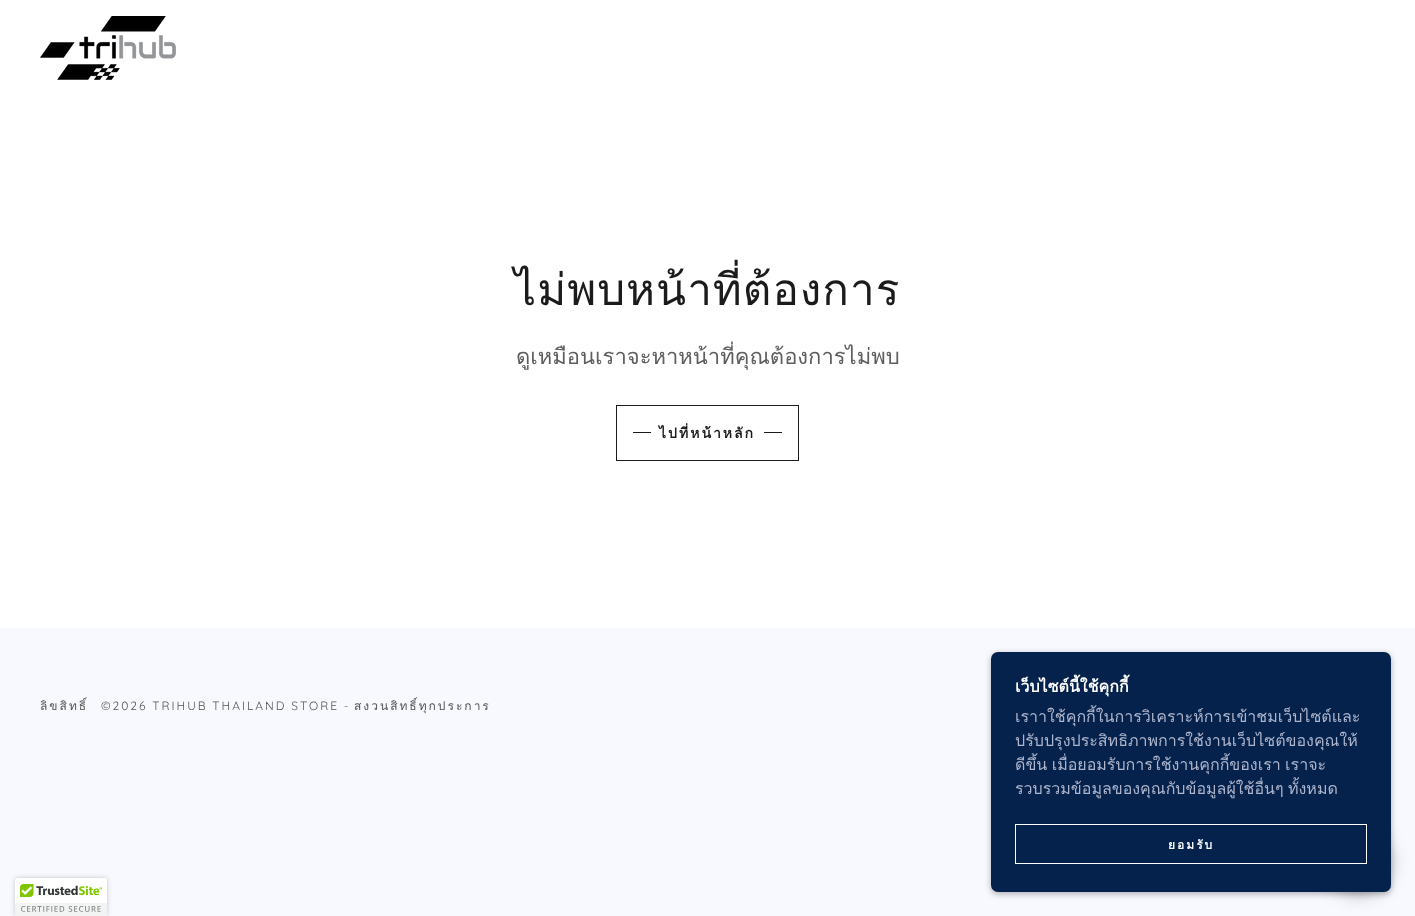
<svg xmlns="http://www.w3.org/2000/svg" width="1415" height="916">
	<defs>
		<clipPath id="clip1"><rect x="1015" y="704" width="352" height="96" /></clipPath>
	</defs>
	<rect width="100%" height="100%" fill="#F8F9FF" />
	<rect x="0" y="0" width="1415" height="628" fill="#FFFFFF" />
	<image x="40" y="16" width="136" height="64" href="assets/img1.png" />
	<text x="514" y="305" font-family="Loma" font-size="44" letter-spacing="1" fill="#1B1B1B">ไม่พบหน้าที่ต้องการ</text>
	<text x="516" y="364" font-family="Loma" font-size="22" fill="#5E5E5E">ดูเหมือนเราจะหาหน้าที่คุณต้องการไม่พบ</text>
	<rect x="616.5" y="405.5" width="182" height="55" fill="none" stroke="#1B1B1B" />
	<rect x="633" y="432" width="18" height="1" fill="#1B1B1B" />
	<text x="659" y="438" font-family="Loma" font-size="14" font-weight="700" letter-spacing="2" fill="#1B1B1B">ไปที่หน้าหลัก</text>
	<rect x="764" y="432" width="18" height="1" fill="#1B1B1B" />
	<text x="40" y="710" font-family="Loma" font-size="12" letter-spacing="2" fill="#525252">ลิขสิทธิ์</text>
	<text x="101" y="710" word-spacing="-0.5" font-family="Quicksand" font-size="12" letter-spacing="2" fill="#525252">©2026 TRIHUB THAILAND STORE -</text>
	<text x="354" y="710" font-family="Loma" font-size="12" letter-spacing="2" fill="#525252">สงวนสิทธิ์ทุกประการ</text>
	<rect x="991" y="654" width="400" height="240" rx="7" fill="#000000" fill-opacity="0.3" filter="blur(3px)" />
	<rect x="1326" y="830" width="65" height="65" rx="32.5" fill="#000000" fill-opacity="0.25" filter="blur(9px)" />
	<rect x="991" y="652" width="400" height="240" rx="7" fill="#04224C" />
	<text x="1015" y="692" font-family="Loma" font-size="16" font-weight="700" fill="#FFFFFF">เว็บไซต์นี้ใช้คุกกี้</text>
	<g font-family="Loma" font-size="16" fill="#AEB5CC">
		<text x="1015" y="722">เราาใช้คุกกี้ในการวิเคราะห์การเข้าชมเว็บไซต์และ</text>
		<text x="1015" y="746">ปรับปรุงประสิทธิภาพการใช้งานเว็บไซต์ของคุณให้</text>
	</g>
	<g clip-path="url(#clip1)">
		<text x="1015" y="770" word-spacing="-1" font-family="Loma" font-size="16" fill="#AEB5CC">ดีขึ้น เมื่อยอมรับการใช้งานคุกกี้ของเรา เราจะ</text>
	</g>
	<text x="1015" y="794" word-spacing="-1" font-family="Loma" font-size="16" fill="#AEB5CC">รวบรวมข้อมูลของคุณกับข้อมูลผู้ใช้อื่นๆ ทั้งหมด</text>
	<rect x="1015.5" y="824.5" width="351" height="39" fill="none" stroke="#FFFFFF" />
	<text x="1168" y="849" font-family="Loma" font-size="12" font-weight="700" letter-spacing="2" fill="#FFFFFF">ยอมรับ</text>
	<rect x="15" y="878" width="92" height="38" rx="2" fill="#000000" fill-opacity="0.2" filter="blur(2.5px)" />
	<path d="M17 878H105C106 878 107 879 107 880V916H15V880C15 879 16 878 17 878Z" fill="#FFFFFF" />
	<image x="15" y="884" width="92" height="32" href="assets/img2.png" />
</svg>
